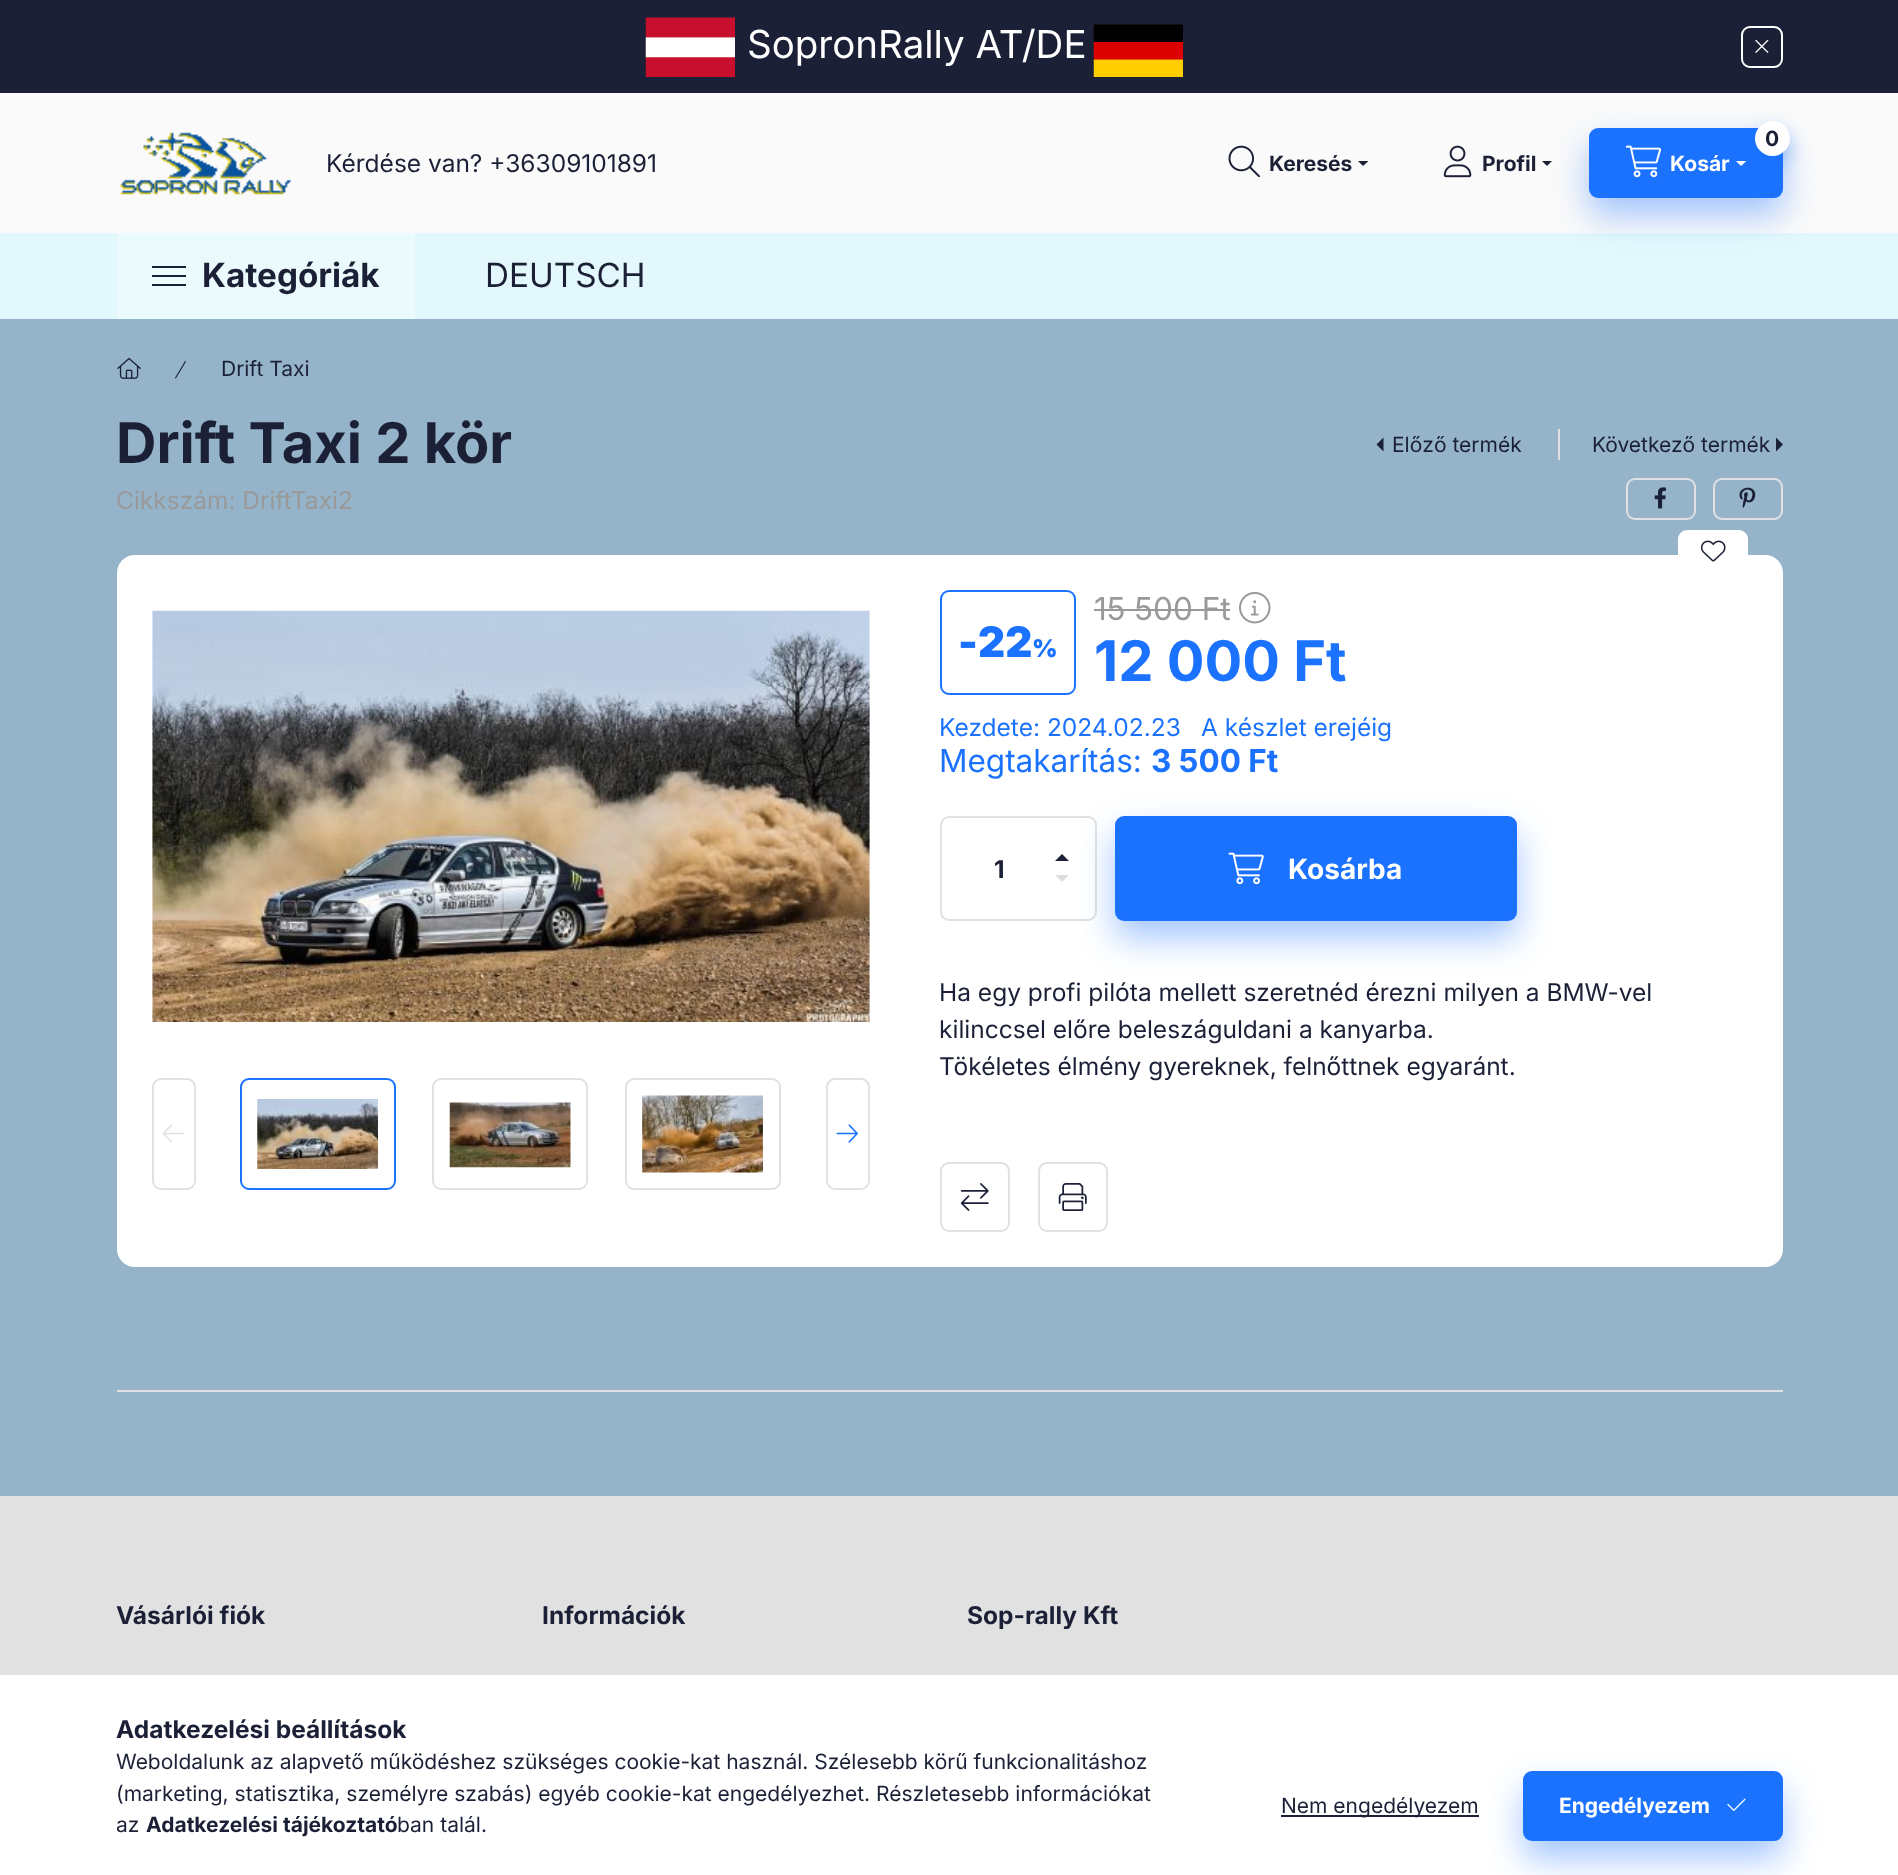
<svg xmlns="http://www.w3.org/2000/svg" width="1898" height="1875">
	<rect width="100%" height="100%" fill="#95B4C9" />
	<rect x="0" y="93" width="1898" height="140" fill="#FAFAFA" />
	<rect x="0" y="233" width="1898" height="86" fill="#E3F8FC" />
	<rect x="1589" y="145" width="194" height="70" rx="9" fill="#1B72FF" fill-opacity="0.4" filter="blur(17.5px)" />
	<rect x="0" y="0" width="1898" height="93" fill="#1B2036" />
	<image x="645" y="17" width="90" height="60" href="assets/img1.png" />
	<text x="747" y="58" font-family="Inter" font-size="38.5" fill="#FFFFFF">SopronRally AT/DE</text>
	<image x="1093" y="24" width="90" height="53" href="assets/img2.png" />
	<rect x="1742" y="27" width="40" height="40" rx="8" fill="none" stroke="#FFFFFF" stroke-width="2" />
	<image x="1755" y="39" width="14" height="14" href="assets/img3.png" />
	<image x="120" y="132" width="171" height="63" href="assets/img4.png" />
	<text x="326" y="172" font-family="Inter" font-size="24.5" fill="#1B2036">Kérdése van? +36309101891</text>
	<image x="1228" y="145" width="32" height="33" href="assets/img5.png" />
	<text x="1269" y="171" font-family="Inter" font-size="21" font-weight="700" fill="#1B2036">Keresés</text>
	<path d="M1358 161H1368.5L1363 166Z" fill="#1B2036" />
	<image x="1443" y="145" width="29" height="33" href="assets/img6.png" />
	<text x="1482" y="171" font-family="Inter" font-size="21" font-weight="700" fill="#1B2036">Profil</text>
	<path d="M1542 161H1552L1547 166Z" fill="#1B2036" />
	<rect x="1589" y="128" width="194" height="70" rx="9" fill="#1B72FF" />
	<rect x="1755" y="130" width="35" height="35" rx="17.5" fill="#1B72FF" fill-opacity="0.4" filter="blur(9px)" />
	<circle cx="1772.5" cy="138.5" r="17.5" fill="#FFFFFF" />
	<text x="1765" y="146" font-family="Inter" font-size="21" font-weight="700" fill="#1B2036">0</text>
	<image x="1625" y="145" width="36" height="33" href="assets/img7.png" />
	<text x="1670" y="171" font-family="Inter" font-size="21" font-weight="700" fill="#FFFFFF">Kosár</text>
	<path d="M1736 161H1746.5L1741 166Z" fill="#FFFFFF" />
	<rect x="117" y="233" width="298" height="86" fill="#EBFAFD" />
	<rect x="152" y="266" width="34" height="2" fill="#1B2036" />
	<rect x="152" y="275" width="34" height="2" fill="#1B2036" />
	<rect x="152" y="284" width="34" height="2" fill="#1B2036" />
	<text x="202" y="287" font-family="Inter" font-size="33.25" font-weight="700" fill="#1B2036">Kategóriák</text>
	<text x="485" y="287" font-family="Inter" font-size="33.25" fill="#1B2036">DEUTSCH</text>
	<image x="117" y="357" width="24" height="22" href="assets/img8.png" />
	<image x="175" y="361" width="11" height="18" href="assets/img9.png" />
	<text x="221" y="376" font-family="Inter" font-size="21" fill="#1B2036">Drift Taxi</text>
	<text x="116" y="463" font-family="Inter" font-size="56" font-weight="700" fill="#1B2036">Drift Taxi 2 kör</text>
	<path d="M1383.5 451.5V437.5L1376.5 444.5Z" fill="#1B2036" />
	<text x="1392" y="452" font-family="Inter" font-size="21" fill="#1B2036">Előző termék</text>
	<rect x="1558" y="429" width="2" height="31" fill="#E1E1E1" />
	<text x="1592" y="452" font-family="Inter" font-size="21" fill="#1B2036">Következő termék</text>
	<path d="M1776 451.5V437.5L1783 444.5Z" fill="#1B2036" />
	<text x="116" y="509" font-family="Inter" font-size="24.5" fill="#999999">Cikkszám: DriftTaxi2</text>
	<rect x="1627" y="479" width="68" height="40" rx="8" fill="none" stroke="#E1E1E1" stroke-width="2" />
	<image x="1654" y="487" width="12" height="22" href="assets/img10.png" />
	<rect x="1714" y="479" width="68" height="40" rx="8" fill="none" stroke="#E1E1E1" stroke-width="2" />
	<image x="1739" y="487" width="17" height="21" href="assets/img11.png" />
	<rect x="117" y="555" width="1666" height="712" rx="18" fill="#FFFFFF" />
	<rect x="1678" y="530" width="70" height="42" rx="9" fill="#FFFFFF" />
	<image x="1701" y="540" width="25" height="22" href="assets/img12.png" />
	<image x="152" y="610" width="718" height="412" href="assets/img13.png" />
	<rect x="153" y="1079" width="42" height="110" rx="8" fill="none" stroke="#E1E1E1" stroke-width="2" />
	<image x="162" y="1124" width="22" height="19" href="assets/img14.png" />
	<rect x="241" y="1079" width="154" height="110" rx="8" fill="none" stroke="#1B72FF" stroke-width="2" />
	<image x="257" y="1099" width="121" height="70" href="assets/img15.png" />
	<rect x="433" y="1079" width="154" height="110" rx="8" fill="none" stroke="#E1E1E1" stroke-width="2" />
	<image x="449" y="1102" width="122" height="66" href="assets/img16.png" />
	<rect x="626" y="1079" width="154" height="110" rx="8" fill="none" stroke="#E1E1E1" stroke-width="2" />
	<image x="642" y="1095" width="121" height="78" href="assets/img17.png" />
	<rect x="827" y="1079" width="42" height="110" rx="8" fill="none" stroke="#E1E1E1" stroke-width="2" />
	<image x="836" y="1124" width="22" height="19" href="assets/img18.png" />
	<rect x="941" y="591" width="134" height="103" rx="8" fill="none" stroke="#1B72FF" stroke-width="2" />
	<g font-family="Inter" font-size="42" font-weight="900" fill="#1B72FF">
		<text x="958" y="657">-</text>
		<text x="978" y="657">22</text>
	</g>
	<text x="1032" y="657" font-family="Inter" font-size="24.5" font-weight="900" fill="#1B72FF">%</text>
	<text x="1094" y="620" font-family="Inter" font-size="31.5" fill="#999999">15 500 Ft</text>
	<rect x="1094" y="609" width="136" height="2" fill="#999999" />
	<image x="1239" y="591" width="32" height="33" href="assets/img19.png" />
	<text x="1094" y="681" font-family="Inter" font-size="56" font-weight="700" fill="#1B72FF">12 000 Ft</text>
	<g font-family="Inter" font-size="24.5" fill="#1B72FF">
		<text x="939" y="736">Kezdete: 2024.02.23</text>
		<text x="1201" y="736">A készlet erejéig</text>
	</g>
	<text x="939" y="772" font-family="Inter" font-size="31.5" fill="#1B72FF">Megtakarítás:</text>
	<text x="1151" y="772" font-family="Inter" font-size="31.5" font-weight="700" fill="#1B72FF">3 500 Ft</text>
	<rect x="941" y="817" width="155" height="103" rx="8" fill="none" stroke="#E1E1E1" stroke-width="2" />
	<text x="994" y="878" font-family="Inter" font-size="24.5" font-weight="700" fill="#1B2036">1</text>
	<path d="M1069 861H1055L1062 854Z" fill="#1B2036" />
	<path d="M1055 875H1069L1062 882Z" fill="#DDDDDD" />
	<rect x="1115" y="833" width="402" height="105" rx="9" fill="#1B72FF" fill-opacity="0.4" filter="blur(17.5px)" />
	<rect x="1115" y="816" width="402" height="105" rx="9" fill="#1B72FF" />
	<image x="1228" y="852" width="36" height="33" href="assets/img20.png" />
	<text x="1288" y="879" font-family="Inter" font-size="28" font-weight="700" fill="#FFFFFF">Kosárba</text>
	<g font-family="Inter" font-size="24.5" fill="#1B2036">
		<text x="939" y="1001">Ha egy profi pilóta mellett szeretnéd érezni milyen a BMW-vel</text>
		<text x="939" y="1038">kilinccsel előre beleszáguldani a kanyarba.</text>
		<text x="939" y="1075">Tökéletes élmény gyereknek, felnőttnek egyaránt.</text>
	</g>
	<rect x="941" y="1163" width="68" height="68" rx="8" fill="none" stroke="#E1E1E1" stroke-width="2" />
	<image x="960" y="1183" width="29" height="28" href="assets/img21.png" />
	<rect x="1039" y="1163" width="68" height="68" rx="8" fill="none" stroke="#E1E1E1" stroke-width="2" />
	<image x="1058" y="1183" width="29" height="28" href="assets/img22.png" />
	<rect x="117" y="1390" width="1666" height="2" fill="#E1E1E1" />
	<rect x="0" y="1496" width="1898" height="179" fill="#E1E1E1" />
	<g font-family="Inter" font-size="24.5" font-weight="700" fill="#1B2036">
		<text x="116" y="1624">Vásárlói fiók</text>
		<text x="542" y="1624">Információk</text>
		<text x="967" y="1624">Sop-rally Kft</text>
	</g>
	<rect x="0" y="1675" width="1898" height="200" fill="#FFFFFF" />
	<text x="116" y="1738" font-family="Inter" font-size="24.5" font-weight="700" fill="#1B2036">Adatkezelési beállítások</text>
	<g font-family="Inter" font-size="21" fill="#1B2036">
		<text x="116" y="1769">Weboldalunk az alapvető működéshez szükséges cookie-kat használ. Szélesebb körű funkcionalitáshoz</text>
		<text x="116" y="1801">(marketing, statisztika, személyre szabás) egyéb cookie-kat engedélyezhet. Részletesebb információkat</text>
		<text x="116" y="1832">az</text>
	</g>
	<text x="146" y="1832" font-family="Inter" font-size="21" font-weight="700" fill="#1B2036">Adatkezelési tájékoztató</text>
	<text x="397" y="1832" font-family="Inter" font-size="21" fill="#1B2036">ban talál.</text>
	<rect x="1281" y="1815" width="198" height="2" fill="#1B2036" />
	<text x="1281" y="1813" font-family="Inter" font-size="21" fill="#1B2036">Nem engedélyezem</text>
	<rect x="1523" y="1789" width="260" height="70" rx="9" fill="#1B72FF" fill-opacity="0.4" filter="blur(17.5px)" />
	<rect x="1524" y="1772" width="258" height="68" rx="8" fill="#1B72FF" stroke="#1B72FF" stroke-width="2" />
	<text x="1559" y="1813" font-family="Inter" font-size="21" font-weight="700" fill="#FFFFFF">Engedélyezem</text>
	<image x="1727" y="1798" width="19" height="13" href="assets/img23.png" />
</svg>
